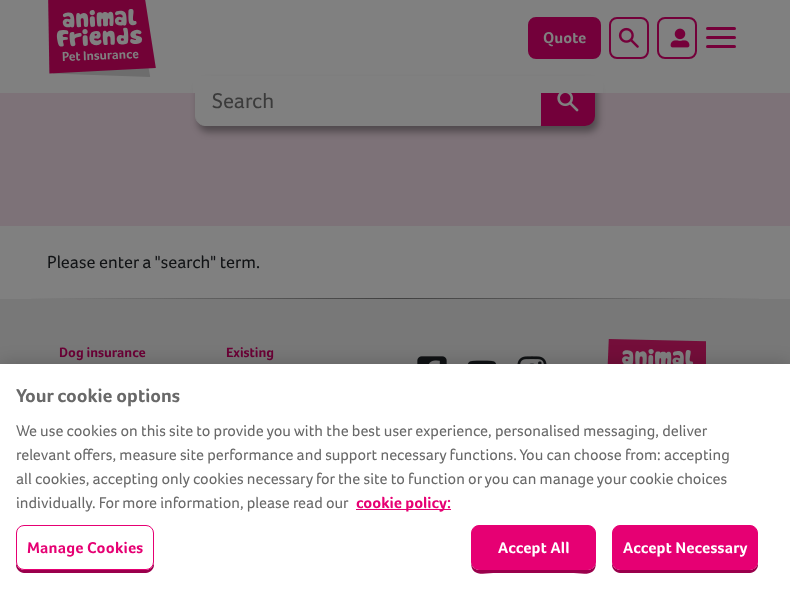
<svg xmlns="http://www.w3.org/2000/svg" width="790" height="591">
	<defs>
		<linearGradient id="g1" gradientUnits="userSpaceOnUse" x1="0" y1="299" x2="790" y2="299"><stop offset="0.02" stop-color="#808080" /><stop offset="0.5" stop-color="#404040" /><stop offset="0.98" stop-color="#808080" /></linearGradient>
	</defs>
	<rect width="100%" height="100%" fill="#808080" />
	<rect x="0" y="93" width="790" height="133" fill="#7D7278" />
	<rect x="198" y="82" width="400" height="50" rx="10" fill="#000000" fill-opacity="0.35" filter="blur(3.5px)" />
	<path d="M205 76.5H540.5V125.5H205C200 125.5 195.5 121 195.5 116V86C195.5 81 200 76.5 205 76.5Z" fill="#808080" stroke="#808080" />
	<text x="212" y="108" font-family="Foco" font-size="22" fill="#3B3B3B">Search</text>
	<path d="M542 77H585C590 77 594 81 594 86V116C594 121 590 125 585 125H542Z" fill="#73003A" stroke="#73003A" stroke-width="2" />
	<rect x="193" y="76" width="410" height="17" fill="#808080" />
	<image x="48" y="0" width="108" height="77" href="assets/img1.png" />
	<rect x="529" y="18" width="71" height="40" rx="7" fill="#73003A" stroke="#73003A" stroke-width="2" />
	<text x="543" y="43" font-family="Foco" font-size="16" font-weight="700" fill="#808080">Quote</text>
	<rect x="610" y="18" width="38" height="40" rx="7" fill="none" stroke="#73003A" stroke-width="2" />
	<image x="618" y="27" width="21" height="21" href="assets/img2.png" />
	<rect x="658" y="18" width="38" height="40" rx="7" fill="none" stroke="#73003A" stroke-width="2" />
	<image x="670" y="28" width="20" height="20" href="assets/img3.png" />
	<rect x="706" y="27" width="30" height="3" rx="1.5" fill="#75003A" />
	<rect x="706" y="36" width="30" height="3" rx="1.5" fill="#75003A" />
	<rect x="706" y="45" width="30" height="3" rx="1.5" fill="#75003A" />
	<image x="557" y="93" width="22" height="19" href="assets/img4.png" />
	<text x="47" y="268" font-family="Foco" font-size="18" fill="#111315">Please enter a "search" term.</text>
	<rect x="0" y="299" width="790" height="65" fill="#787878" />
	<rect x="31" y="298" width="728" height="1" fill="url(#g1)" />
	<g font-family="Foco" font-size="14" font-weight="700" fill="#6B0036">
		<text x="59" y="357">Dog insurance</text>
		<text x="226" y="357">Existing</text>
	</g>
	<image x="417" y="356" width="30" height="8" href="assets/img5.png" />
	<image x="467" y="360" width="29" height="4" href="assets/img6.png" />
	<image x="517" y="356" width="30" height="8" href="assets/img7.png" />
	<image x="607" y="339" width="99" height="25" href="assets/img8.png" />
	<rect x="0" y="364" width="790" height="227" fill="#000000" fill-opacity="0.2" filter="blur(9px)" />
	<rect x="0" y="364" width="790" height="227" fill="#FFFFFF" />
	<text x="16" y="402" font-family="Foco" font-size="19.25" font-weight="700" fill="#696969">Your cookie options</text>
	<g font-family="Foco" font-size="16" fill="#696969">
		<text x="16" y="436">We use cookies on this site to provide you with the best user experience, personalised messaging, deliver</text>
		<text x="16" y="460">relevant offers, measure site performance and support necessary functions. You can choose from: accepting</text>
		<text x="16" y="484">all cookies, accepting only cookies necessary for the site to function or you can manage your cookie choices</text>
		<text x="16" y="508">individually. For more information, please read our</text>
	</g>
	<rect x="356" y="509" width="95" height="1" fill="#E60073" />
	<text x="356" y="508" font-family="Foco" font-size="16" font-weight="700" fill="#E60073">cookie policy:</text>
	<path d="M16 562V565C16 569 20 573 24 573H146C150 573 154 569 154 565V562C154 566 150 570 146 570H24C20 570 16 566 16 562Z" fill="#9A004C" />
	<rect x="16.5" y="525.5" width="137" height="44" rx="7.5" fill="#FFFFFF" stroke="#E60073" />
	<text x="27" y="553" font-family="Foco" font-size="16" font-weight="700" letter-spacing="0.2" fill="#E60073">Manage Cookies</text>
	<path d="M471 562C471 578 484 573 497 573H570C583 573 596 578 596 562C596 566 592 570 588 570H479C475 570 471 566 471 562Z" fill="#9A004C" />
	<rect x="471.5" y="525.5" width="124" height="44" rx="7.5" fill="#E60073" stroke="#E60073" />
	<text x="498" y="553" font-family="Foco" font-size="16" font-weight="700" letter-spacing="0.2" fill="#FFFFFF">Accept All</text>
	<path d="M612 562V565C612 569 616 573 620 573H750C754 573 758 569 758 565V562C758 566 754 570 750 570H620C616 570 612 566 612 562Z" fill="#9A004C" />
	<rect x="612.5" y="525.5" width="145" height="44" rx="7.5" fill="#E60073" stroke="#E60073" />
	<text x="623" y="553" font-family="Foco" font-size="16" font-weight="700" letter-spacing="0.2" fill="#FFFFFF">Accept Necessary</text>
</svg>
